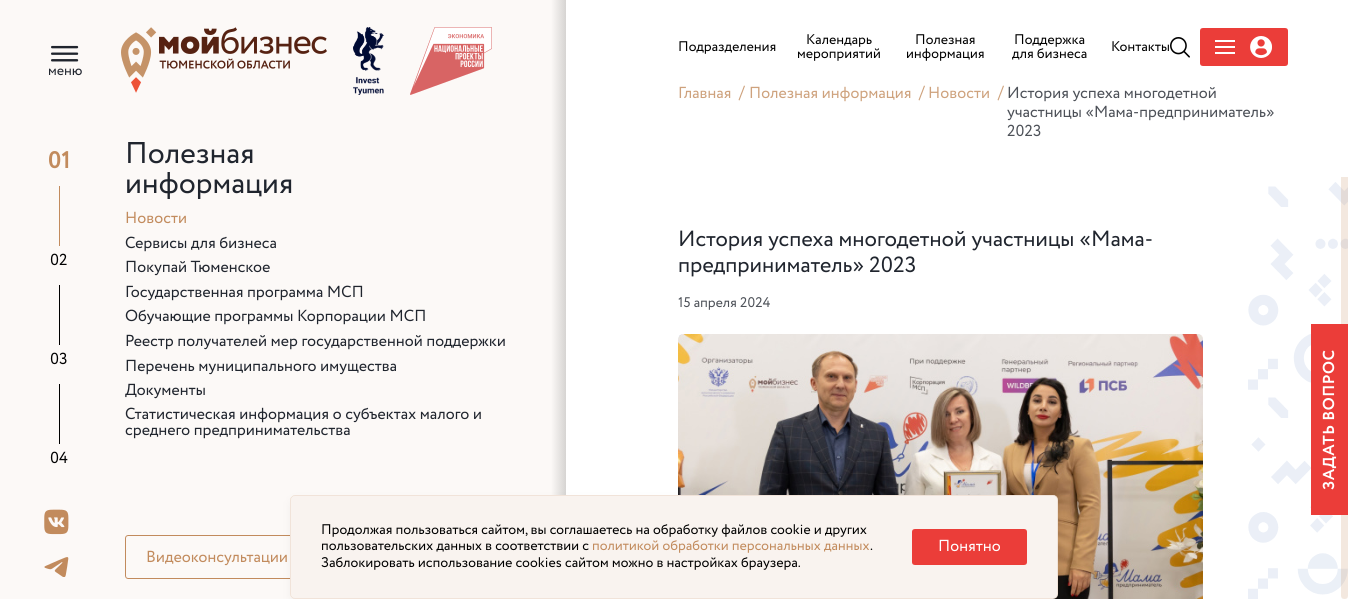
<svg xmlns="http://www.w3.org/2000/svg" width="1348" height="599">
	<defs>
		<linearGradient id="g1" gradientUnits="userSpaceOnUse" x1="551" y1="300" x2="566" y2="300"><stop offset="0" stop-color="#FCF9F7" /><stop offset="1" stop-color="#D6D4D2" /></linearGradient>
	</defs>
	<rect width="100%" height="100%" fill="#FFFFFF" />
	<rect x="0" y="0" width="551" height="599" fill="#FCF9F7" />
	<image x="128" y="142" width="125" height="22" href="assets/img1.png" />
	<image x="127" y="172" width="165" height="27" href="assets/img2.png" />
	<image x="126" y="211" width="60" height="13" href="assets/img3.png" />
	<image x="125" y="236" width="151" height="16" href="assets/img4.png" />
	<image x="126" y="260" width="144" height="16" href="assets/img5.png" />
	<image x="126" y="285" width="237" height="16" href="assets/img6.png" />
	<image x="125" y="309" width="300" height="16" href="assets/img7.png" />
	<image x="126" y="334" width="379" height="16" href="assets/img8.png" />
	<image x="126" y="359" width="270" height="16" href="assets/img9.png" />
	<image x="125" y="383" width="80" height="16" href="assets/img10.png" />
	<image x="125" y="407" width="356" height="16" href="assets/img11.png" />
	<image x="125" y="427" width="225" height="12" href="assets/img12.png" />
	<rect x="551" y="0" width="15" height="495" fill="url(#g1)" />
	<rect x="125.5" y="535.5" width="183" height="43" rx="2.5" fill="none" stroke="#C28B5D" />
	<image x="147" y="550" width="140" height="16" href="assets/img13.png" />
	<image x="1248" y="182" width="100" height="417" href="assets/img43.png" />
	<rect x="1341" y="0" width="7" height="599" rx="3.5" fill="#C28B5D" fill-opacity="0.2" />
	<rect x="1341" y="0" width="7" height="177" fill="#FFFFFF" />
	<image x="679" y="41" width="97" height="13" href="assets/img14.png" />
	<image x="807" y="34" width="65" height="13" href="assets/img15.png" />
	<image x="798" y="48" width="82" height="13" href="assets/img16.png" />
	<image x="916" y="34" width="59" height="11" href="assets/img17.png" />
	<image x="907" y="48" width="77" height="13" href="assets/img18.png" />
	<image x="1015" y="34" width="70" height="13" href="assets/img19.png" />
	<image x="1012" y="48" width="75" height="12" href="assets/img20.png" />
	<image x="1112" y="41" width="57" height="11" href="assets/img21.png" />
	<image x="1170" y="37" width="20" height="21" href="assets/img22.png" />
	<rect x="1200" y="28" width="88" height="38" rx="3" fill="#EB3D39" />
	<rect x="1215" y="40" width="20" height="2" fill="#FFFFFF" />
	<rect x="1215" y="46" width="20" height="2" fill="#FFFFFF" />
	<rect x="1215" y="52" width="20" height="2" fill="#FFFFFF" />
	<image x="1250" y="36" width="22" height="22" href="assets/img23.png" />
	<image x="679" y="86" width="52" height="13" href="assets/img24.png" />
	<path d="M739.5 100.5L738.5 100L744 85.5L745 86Z" fill="#CEA27D" />
	<image x="750" y="86" width="161" height="16" href="assets/img25.png" />
	<path d="M919.5 100.5L918.5 100L924 85.5L925 86Z" fill="#CEA27D" />
	<image x="929" y="86" width="60" height="13" href="assets/img26.png" />
	<path d="M998.5 100.5L997.5 100L1003 85.5L1004 86Z" fill="#CEA27D" />
	<image x="1008" y="86" width="208" height="16" href="assets/img27.png" />
	<image x="1007" y="105" width="267" height="16" href="assets/img28.png" />
	<image x="1007" y="124" width="34" height="13" href="assets/img29.png" />
	<image x="680" y="230" width="472" height="21" href="assets/img30.png" />
	<image x="679" y="256" width="236" height="21" href="assets/img31.png" />
	<image x="678" y="297" width="92" height="13" href="assets/img32.png" />
	<image x="678" y="334" width="525" height="265" href="assets/img33.png" />
	<image x="51" y="45" width="28" height="17" href="assets/img34.png" />
	<image x="49" y="68" width="33" height="8" href="assets/img35.png" />
	<image x="121" y="27" width="206" height="66" href="assets/img36.png" />
	<image x="353" y="27" width="31" height="68" href="assets/img37.png" />
	<image x="410" y="27" width="82" height="68" href="assets/img38.png" />
	<image x="49" y="151" width="20" height="18" href="assets/img39.png" />
	<rect x="59" y="186" width="1" height="60" fill="#C28B5D" />
	<image x="50" y="253" width="17" height="13" href="assets/img40.png" />
	<rect x="59" y="285" width="1" height="60" fill="#000000" />
	<image x="50" y="352" width="17" height="13" href="assets/img41.png" />
	<rect x="59" y="384" width="1" height="60" fill="#000000" />
	<image x="50" y="451" width="18" height="13" href="assets/img42.png" />
	<rect x="1311" y="324" width="37" height="191" fill="#EB3D39" />
	<image x="1322" y="350" width="15" height="140" href="assets/img44.png" />
	<image x="44" y="509" width="25" height="26" href="assets/img45.png" />
	<image x="44" y="557" width="25" height="20" href="assets/img46.png" />
	<rect x="290" y="499" width="768" height="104" rx="5" fill="#000000" fill-opacity="0.04" filter="blur(4px)" />
	<rect x="290" y="495" width="768" height="104" rx="5" fill="#F9F3EF" />
	<rect x="290.5" y="495.5" width="767" height="103" rx="4.5" fill="none" stroke="#C28B5D" stroke-opacity="0.15" />
	<image x="322" y="524" width="545" height="13" href="assets/img47.png" />
	<image x="322" y="543" width="267" height="9" href="assets/img48.png" />
	<image x="593" y="540" width="276" height="13" href="assets/img49.png" />
	<image x="870" y="548" width="3" height="2" href="assets/img50.png" />
	<image x="321" y="557" width="479" height="13" href="assets/img51.png" />
	<rect x="912" y="529" width="115" height="36" rx="3" fill="#EB3D39" />
	<image x="939" y="539" width="61" height="13" href="assets/img52.png" />
</svg>
